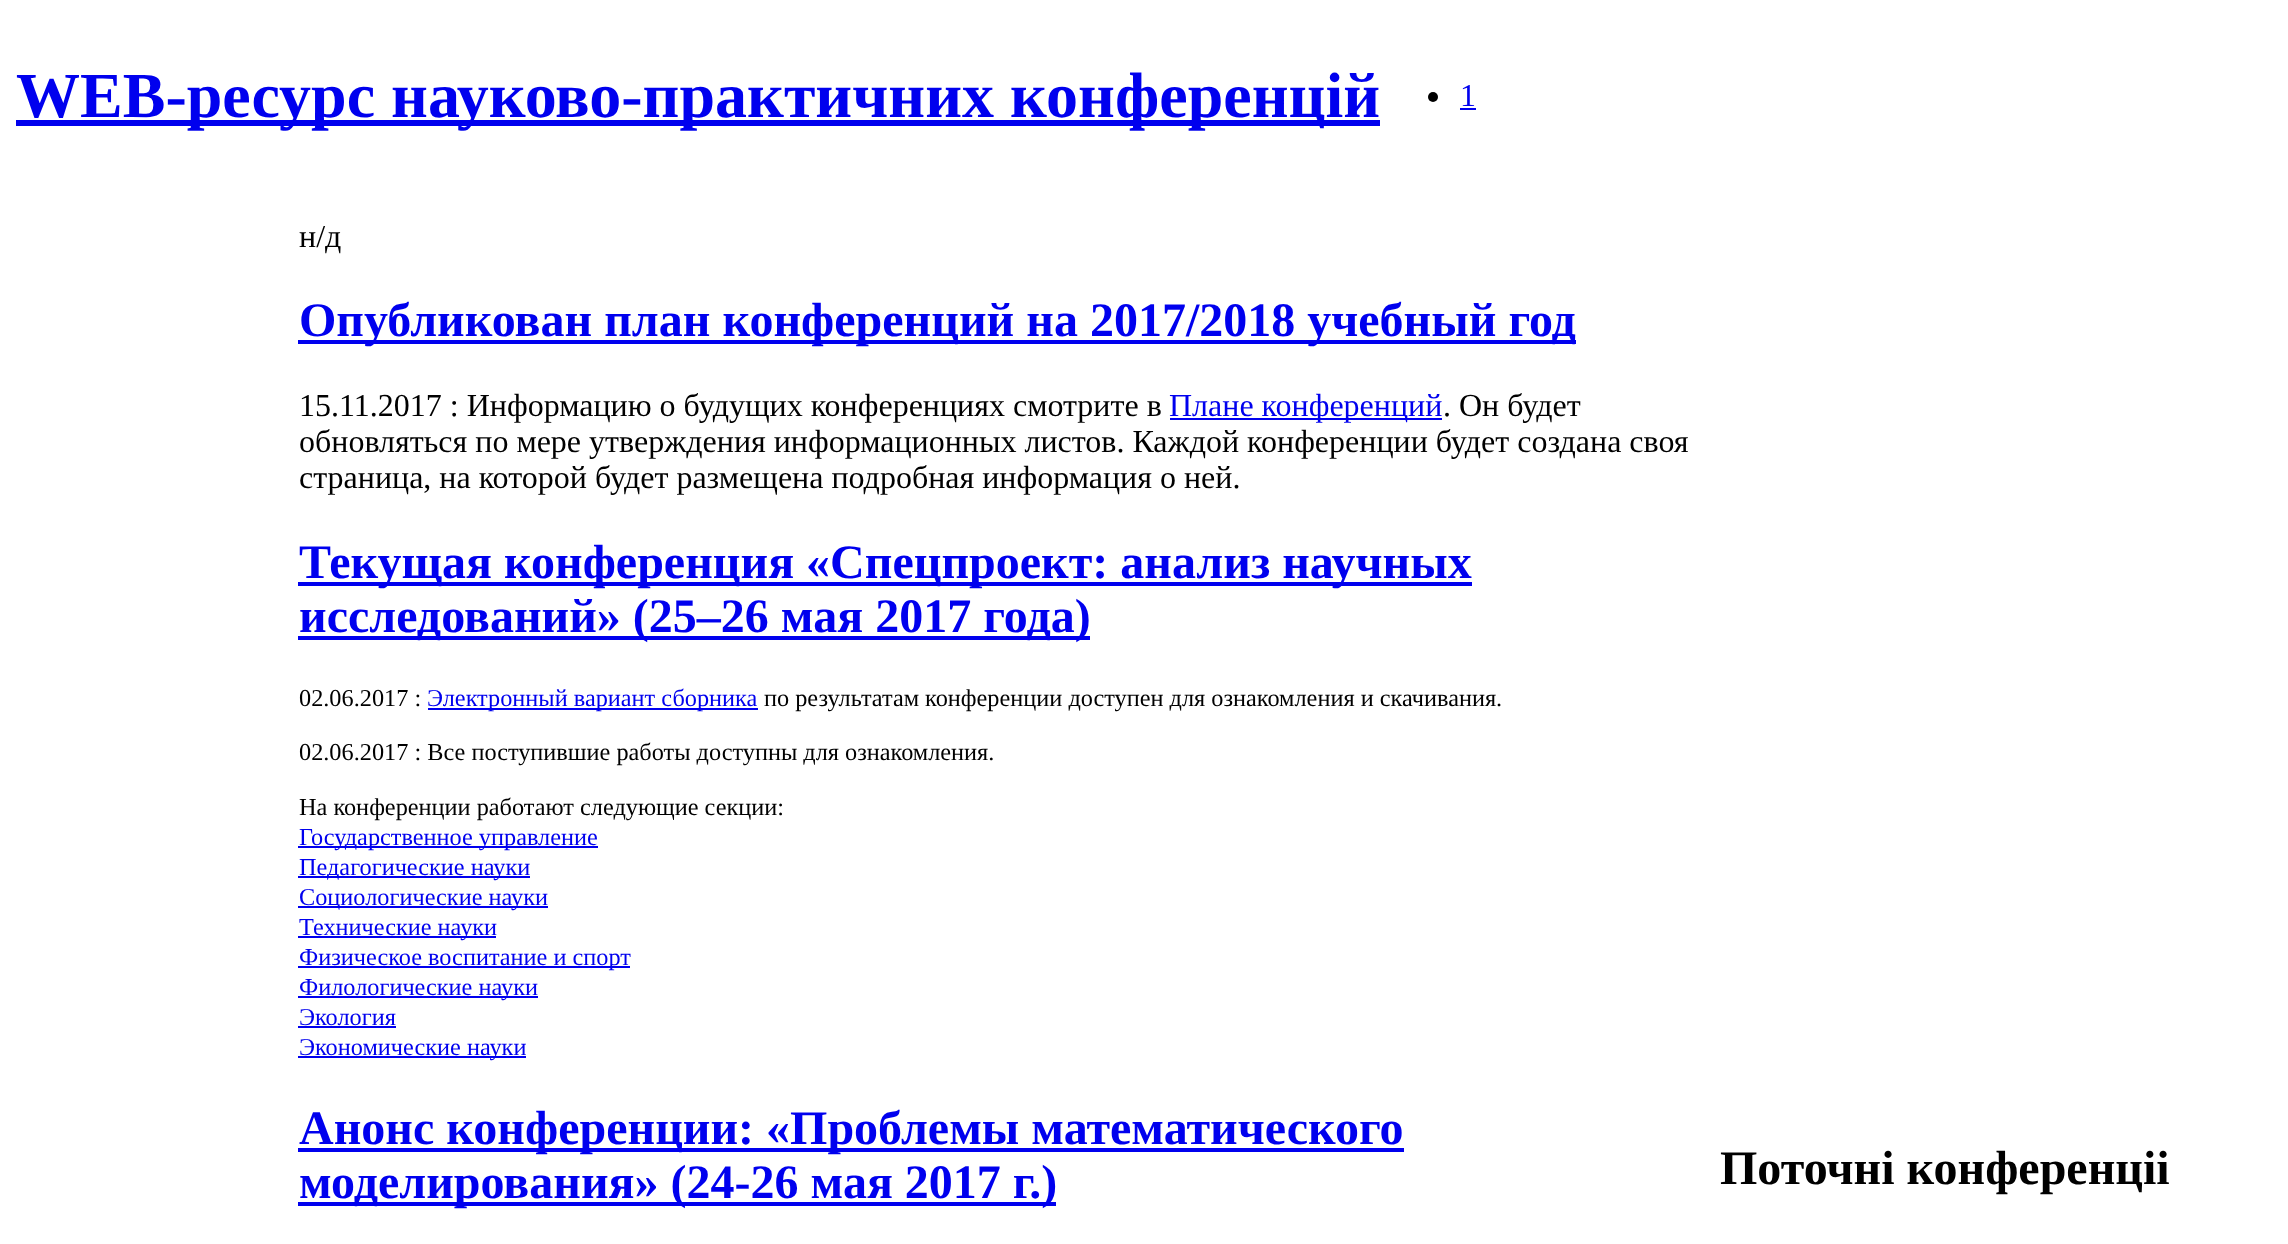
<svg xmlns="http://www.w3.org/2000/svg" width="2288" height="1244">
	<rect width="100%" height="100%" fill="#FFFFFF" />
	<rect x="16" y="120" width="1364" height="6" fill="#0000EE" />
	<text x="16" y="117" font-family="Liberation Serif" font-size="64" font-weight="700" fill="#0000EE">WEB-ресурс науково-практичних конференцій</text>
	<circle cx="1433" cy="97" r="5" fill="#000000" />
	<text x="1460" y="106" font-family="Liberation Serif" font-size="32" fill="#0000EE">1</text>
	<rect x="1460" y="108" width="16" height="2" fill="#0000EE" />
	<text x="299" y="247" font-family="Liberation Serif" font-size="32" fill="#000000">н/д</text>
	<rect x="298" y="340" width="1278" height="4" fill="#0000EE" />
	<text x="299" y="336" font-family="Liberation Serif" font-size="48" font-weight="700" fill="#0000EE">Опубликован план конференций на 2017/2018 учебный год</text>
	<text x="299" y="416" font-family="Liberation Serif" font-size="32" fill="#000000">15.11.2017 : Информацию о будущих конференциях смотрите в</text>
	<rect x="1170" y="418" width="272" height="2" fill="#0000EE" />
	<text x="1169" y="416" font-family="Liberation Serif" font-size="32" fill="#0000EE">Плане конференций</text>
	<g font-family="Liberation Serif" font-size="32" fill="#000000">
		<text x="1443" y="416">. Он будет</text>
		<text x="299" y="452">обновляться по мере утверждения информационных листов. Каждой конференции будет создана своя</text>
		<text x="299" y="488">страница, на которой будет размещена подробная информация о ней.</text>
	</g>
	<rect x="298" y="582" width="1174" height="4" fill="#0000EE" />
	<text x="299" y="578" font-family="Liberation Serif" font-size="48" font-weight="700" fill="#0000EE">Текущая конференция «Спецпроект: анализ научных</text>
	<rect x="298" y="636" width="792" height="4" fill="#0000EE" />
	<text x="299" y="632" font-family="Liberation Serif" font-size="48" font-weight="700" fill="#0000EE">исследований» (25–26 мая 2017 года)</text>
	<text x="299" y="706" font-family="Liberation Serif" font-size="24.3" fill="#000000">02.06.2017 :</text>
	<rect x="428" y="708" width="330" height="2" fill="#0000EE" />
	<text x="427" y="706" font-family="Liberation Serif" font-size="24.3" fill="#0000EE">Электронный вариант сборника</text>
	<g font-family="Liberation Serif" font-size="24.3" fill="#000000">
		<text x="764" y="706">по результатам конференции доступен для ознакомления и скачивания.</text>
		<text x="299" y="760">02.06.2017 : Все поступившие работы доступны для ознакомления.</text>
		<text x="299" y="815">На конференции работают следующие секции:</text>
	</g>
	<rect x="298" y="846" width="300" height="2" fill="#0000EE" />
	<text x="299" y="845" font-family="Liberation Serif" font-size="24.3" fill="#0000EE">Государственное управление</text>
	<rect x="298" y="876" width="232" height="2" fill="#0000EE" />
	<text x="299" y="875" font-family="Liberation Serif" font-size="24.3" fill="#0000EE">Педагогические науки</text>
	<rect x="298" y="906" width="250" height="2" fill="#0000EE" />
	<text x="299" y="905" font-family="Liberation Serif" font-size="24.3" fill="#0000EE">Социологические науки</text>
	<rect x="298" y="936" width="198" height="2" fill="#0000EE" />
	<text x="299" y="935" font-family="Liberation Serif" font-size="24.3" fill="#0000EE">Технические науки</text>
	<rect x="298" y="966" width="332" height="2" fill="#0000EE" />
	<text x="299" y="965" font-family="Liberation Serif" font-size="24.3" fill="#0000EE">Физическое воспитание и спорт</text>
	<rect x="298" y="996" width="240" height="2" fill="#0000EE" />
	<g font-family="Liberation Serif" font-size="24.3" fill="#0000EE">
		<text x="299" y="995">Филологические науки</text>
		<text x="299" y="1025">Экология</text>
	</g>
	<rect x="298" y="1026" width="98" height="2" fill="#0000EE" />
	<rect x="298" y="1056" width="228" height="2" fill="#0000EE" />
	<text x="299" y="1055" font-family="Liberation Serif" font-size="24.3" fill="#0000EE">Экономические науки</text>
	<rect x="298" y="1148" width="1106" height="4" fill="#0000EE" />
	<text x="299" y="1144" font-family="Liberation Serif" font-size="48" font-weight="700" fill="#0000EE">Анонс конференции: «Проблемы математического</text>
	<rect x="298" y="1202" width="758" height="4" fill="#0000EE" />
	<text x="299" y="1198" font-family="Liberation Serif" font-size="48" font-weight="700" fill="#0000EE">моделирования» (24-26 мая 2017 г.)</text>
	<text x="1720" y="1184" font-family="Liberation Serif" font-size="48" font-weight="700" fill="#000000">Поточні конференціі</text>
</svg>
